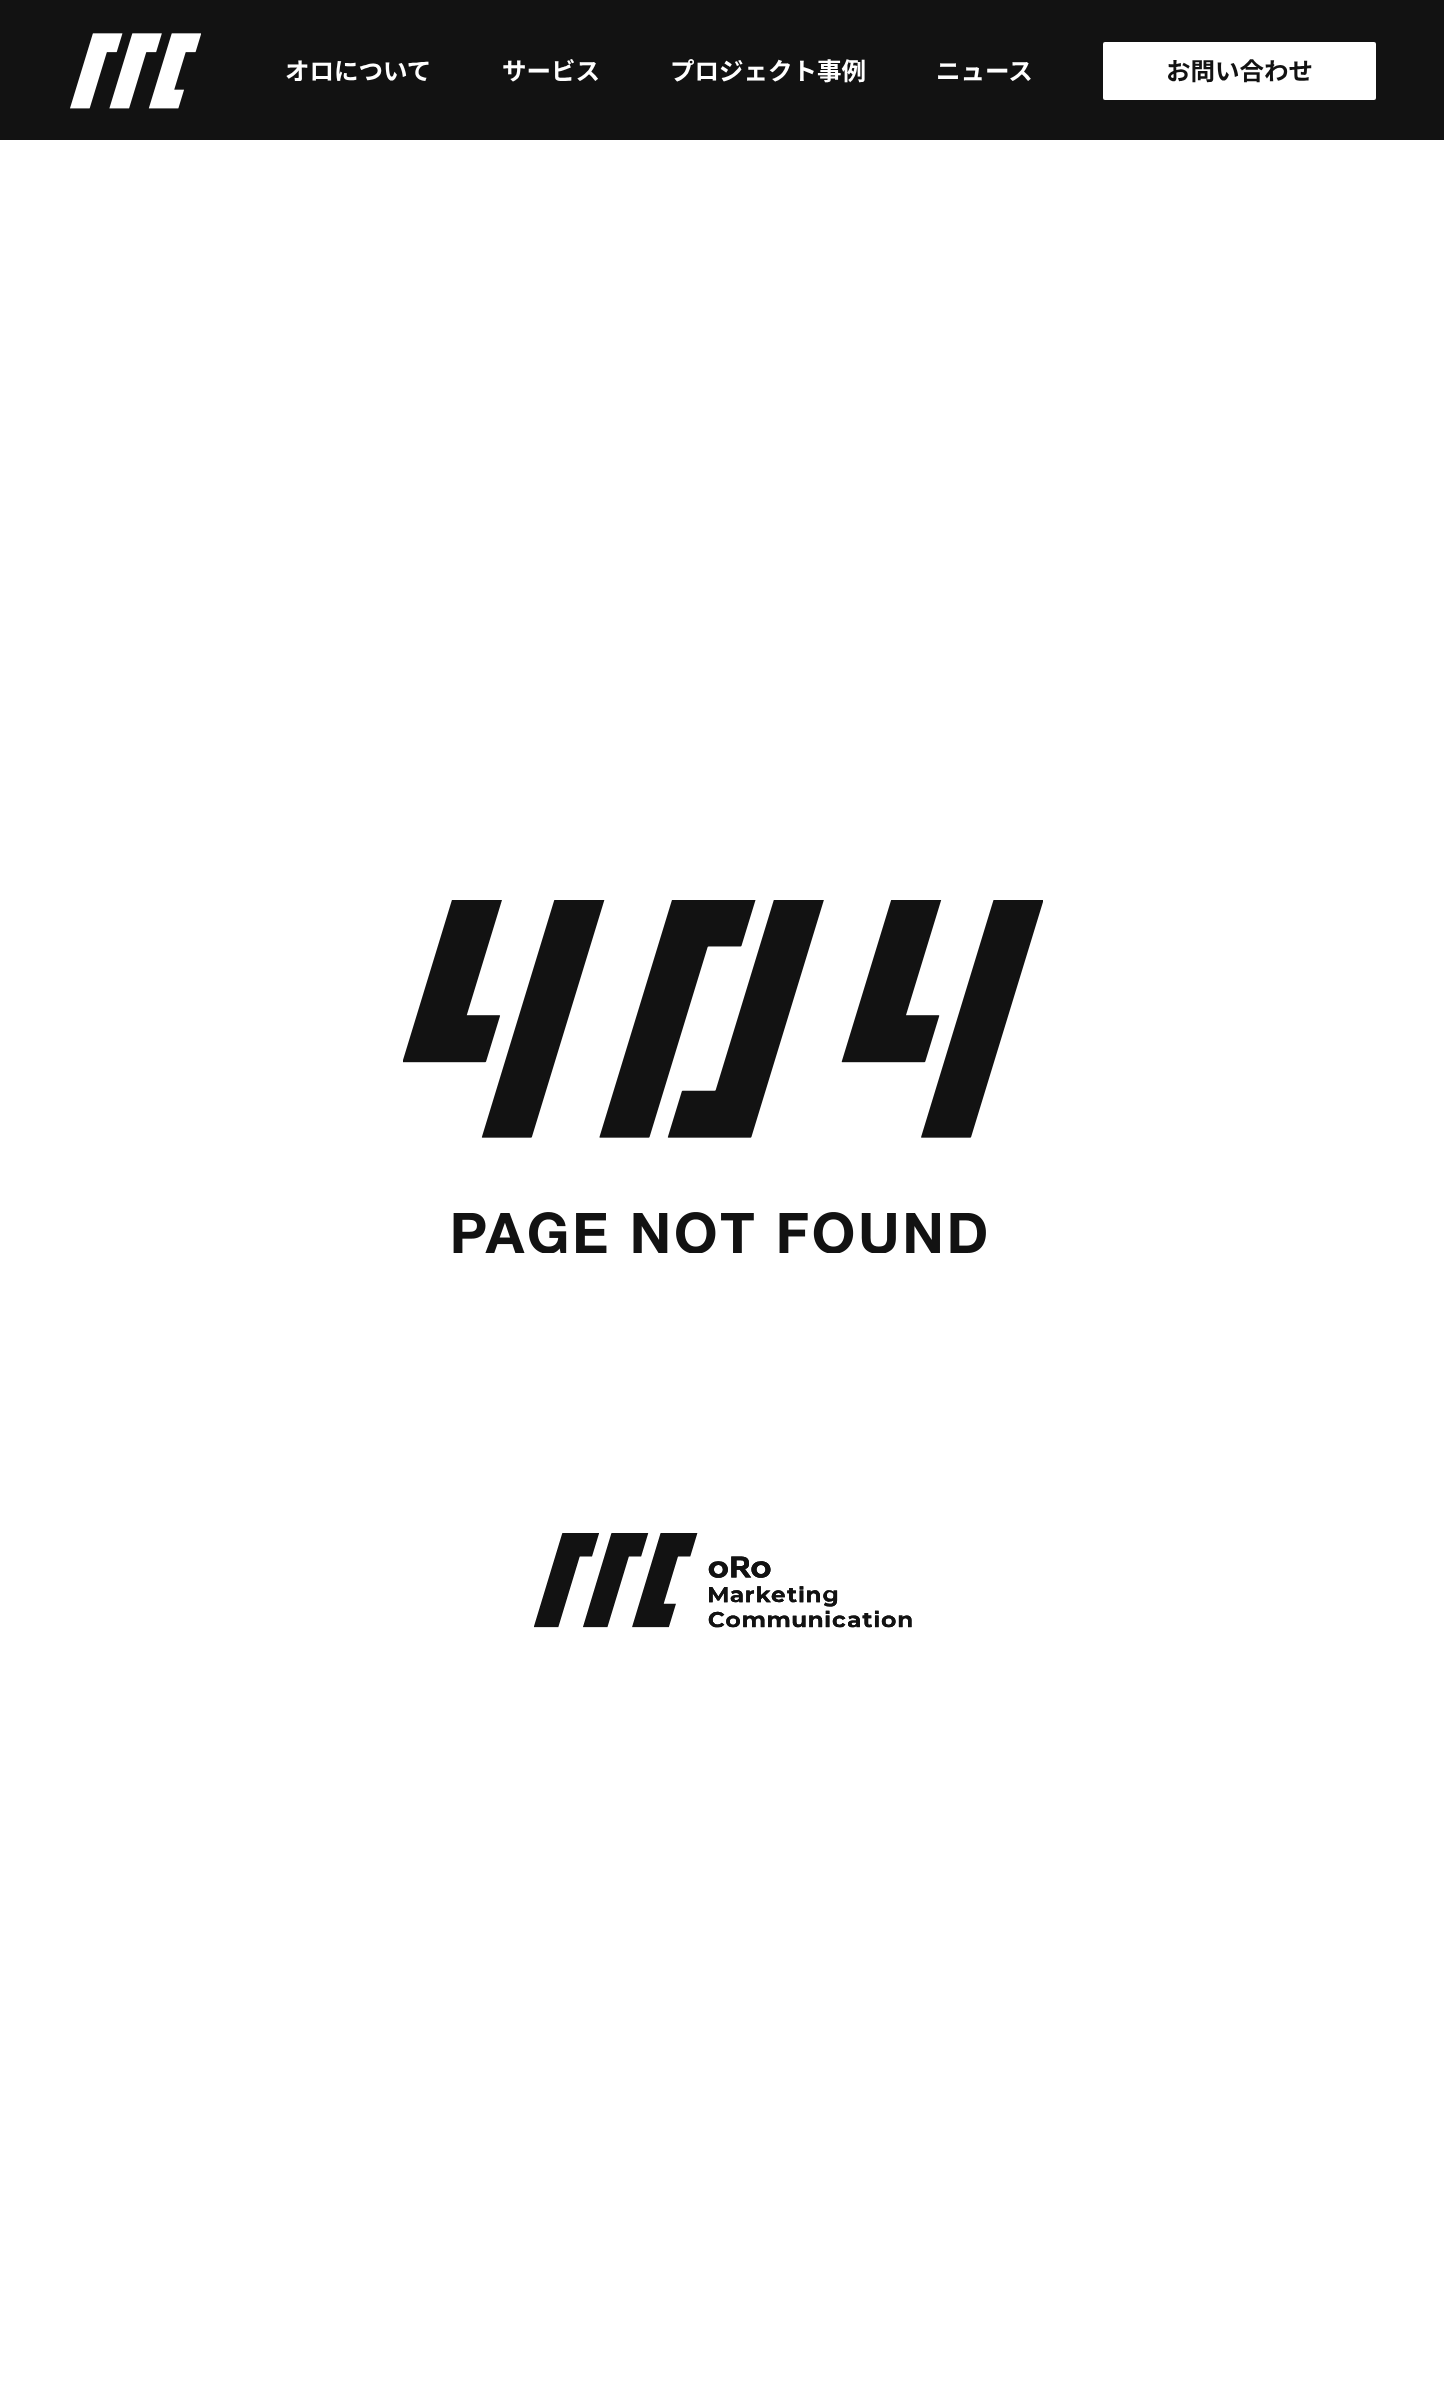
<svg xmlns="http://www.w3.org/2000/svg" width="1444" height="2387">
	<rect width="100%" height="100%" fill="#FFFFFF" />
	<rect x="0" y="0" width="1444" height="140" fill="#121212" />
	<image x="70" y="33" width="131" height="76" href="assets/img1.png" />
	<g font-family="Noto Sans JP" font-size="24.5" font-weight="700" fill="#FFFFFF">
		<text x="285" y="80">オロについて</text>
		<text x="502" y="80">サービス</text>
		<text x="670" y="80">プロジェクト事例</text>
		<text x="936" y="80">ニュース</text>
	</g>
	<rect x="1103" y="42" width="273" height="58" rx="2" fill="#FFFFFF" />
	<text x="1166" y="80" font-family="Noto Sans JP" font-size="24.5" font-weight="700" fill="#121212">お問い合わせ</text>
	<image x="403" y="900" width="640" height="353" href="assets/img2.png" />
	<image x="534" y="1533" width="378" height="95" href="assets/img3.png" />
</svg>
